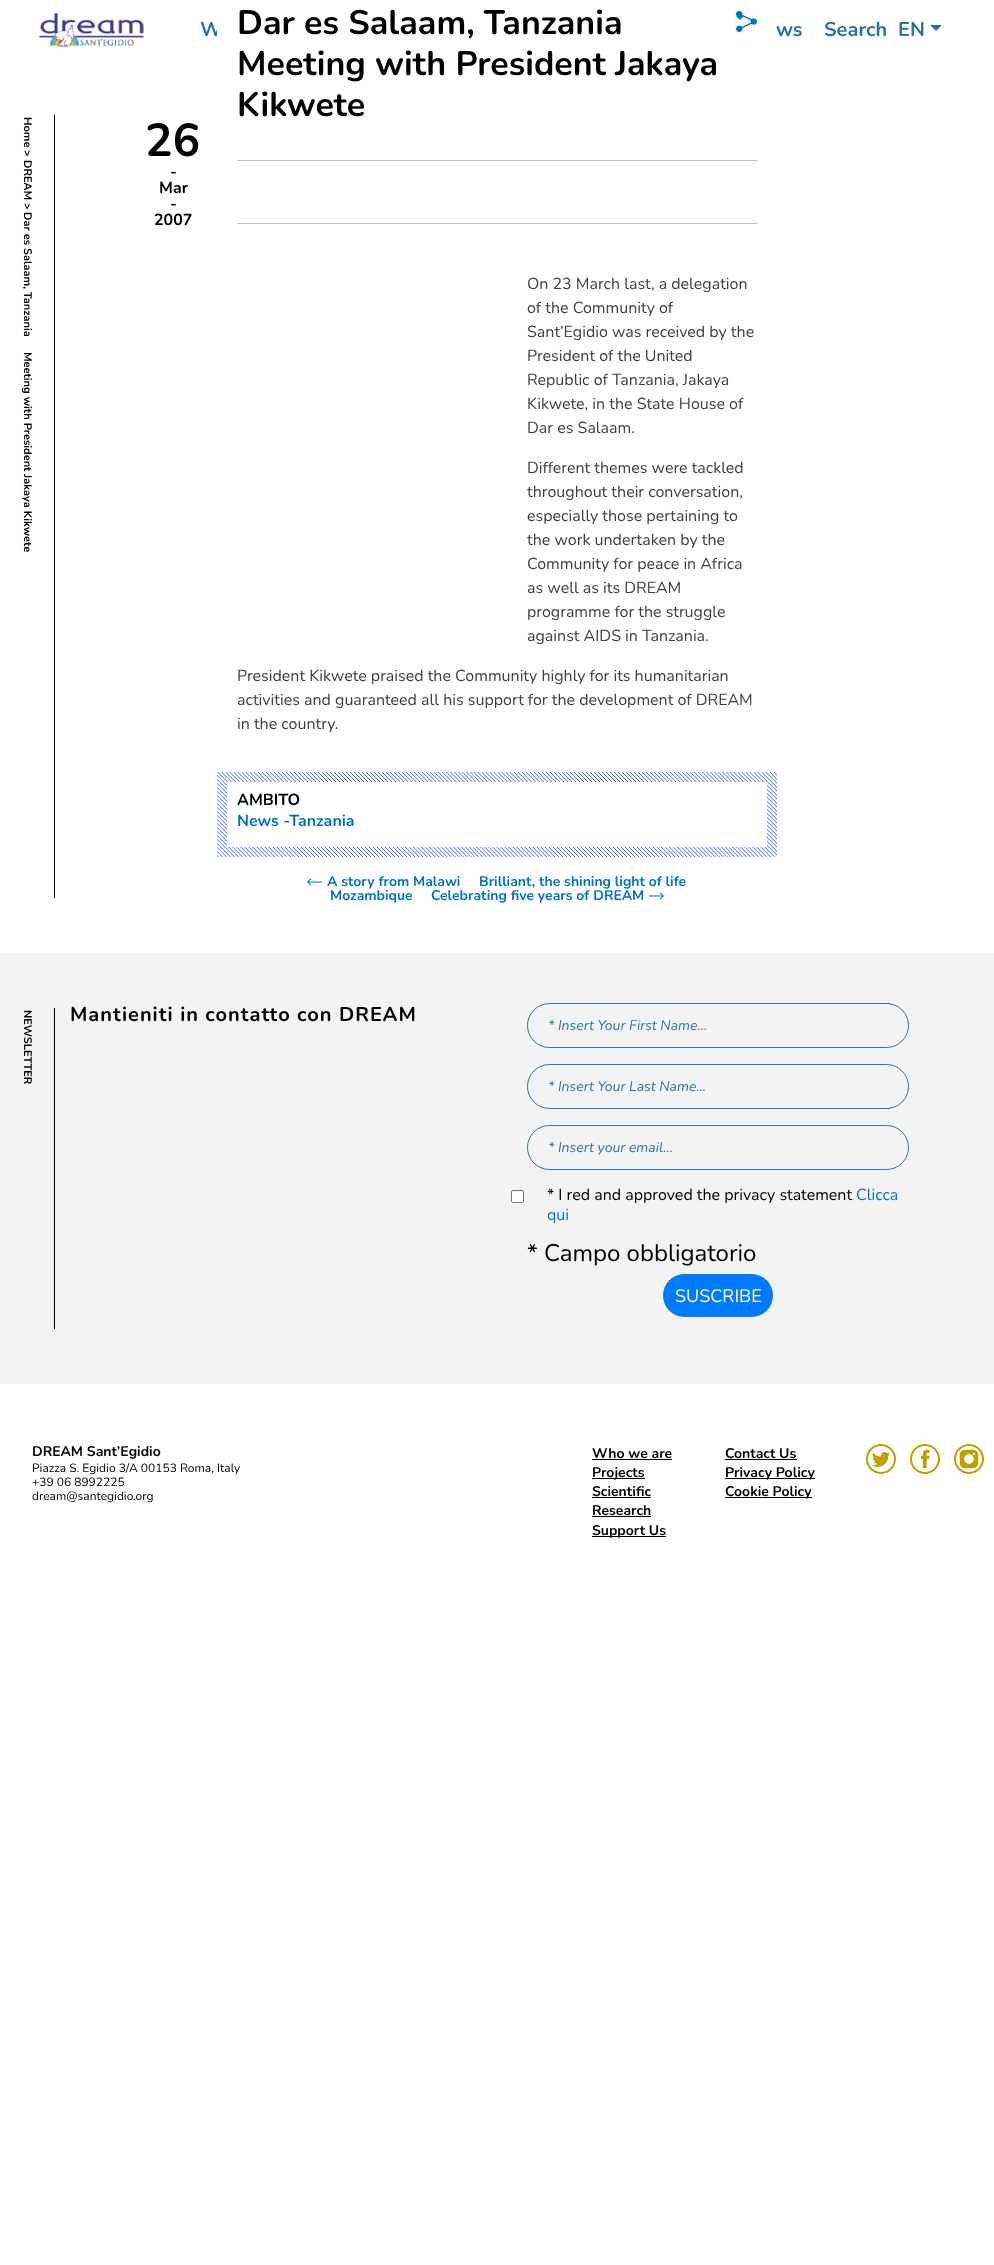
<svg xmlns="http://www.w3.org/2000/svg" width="994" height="2265">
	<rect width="100%" height="100%" fill="#FFFFFF" />
	<rect x="54" y="115" width="1" height="783" fill="#000000" />
	<g font-family="Nunito" font-size="11" font-weight="700" fill="#000000">
		<text x="24" y="117" transform="rotate(90 24 117)">Home</text>
		<text x="24" y="150" transform="rotate(90 24 150)">&gt;</text>
		<text x="24" y="160" transform="rotate(90 24 160)">DREAM</text>
		<text x="24" y="203" transform="rotate(90 24 203)">&gt;</text>
		<text x="24" y="212" transform="rotate(90 24 212)">Dar es Salaam, Tanzania</text>
		<text x="24" y="352" transform="rotate(90 24 352)">Meeting with President Jakaya Kikwete</text>
	</g>
	<text x="145" y="156" font-family="Nunito" font-size="46" font-weight="700" fill="#000000">26</text>
	<g font-family="Nunito" font-size="16" font-weight="700" fill="#000000">
		<text x="170" y="177">-</text>
		<text x="159" y="193">Mar</text>
		<text x="170" y="209">-</text>
		<text x="154" y="225">2007</text>
	</g>
	<text x="200" y="36" font-family="Nunito" font-size="20" font-weight="700" fill="#32729A">W</text>
	<rect x="217" y="21" width="5" height="15" fill="#FFFFFF" />
	<g font-family="Nunito" font-size="34" font-weight="700" fill="#000000">
		<text x="237" y="34">Dar es Salaam, Tanzania</text>
		<text x="237" y="75">Meeting with President Jakaya</text>
		<text x="237" y="116">Kikwete</text>
	</g>
	<image x="736" y="11" width="21" height="21" href="assets/img1.png" />
	<path d="M736 16H744L740 20Z" fill="#0074BD" />
	<rect x="237" y="160" width="520" height="1" fill="#BFBFBF" />
	<rect x="237" y="223" width="520" height="1" fill="#BFBFBF" />
	<g font-family="Nunito" font-size="16" fill="#404040">
		<text x="527" y="289">On 23 March last, a delegation</text>
		<text x="527" y="313">of the Community of</text>
		<text x="527" y="337">Sant’Egidio was received by the</text>
		<text x="527" y="361">President of the United</text>
		<text x="527" y="385">Republic of Tanzania, Jakaya</text>
		<text x="527" y="409">Kikwete, in the State House of</text>
		<text x="527" y="433">Dar es Salaam.</text>
		<text x="527" y="473">Different themes were tackled</text>
		<text x="527" y="497">throughout their conversation,</text>
		<text x="527" y="521">especially those pertaining to</text>
		<text x="527" y="545">the work undertaken by the</text>
		<text x="527" y="569">Community for peace in Africa</text>
		<text x="527" y="593">as well as its DREAM</text>
		<text x="527" y="617">programme for the struggle</text>
		<text x="527" y="641">against AIDS in Tanzania.</text>
		<text x="237" y="681">President Kikwete praised the Community highly for its humanitarian</text>
		<text x="237" y="705">activities and guaranteed all his support for the development of DREAM</text>
		<text x="237" y="729">in the country.</text>
	</g>
	<image x="217" y="772" width="560" height="85" href="assets/img2.png" />
	<rect x="227" y="782" width="540" height="65" fill="#FFFFFF" />
	<text x="237" y="805" font-family="Nunito" font-size="16" font-weight="700" fill="#000000">AMBITO</text>
	<text x="237" y="826" font-family="Nunito" font-size="16" font-weight="700" fill="#0074BD">News -Tanzania</text>
	<image x="307" y="878" width="15" height="8" href="assets/img3.png" />
	<g font-family="Nunito" font-size="14" font-weight="700" fill="#0074BD">
		<text x="327" y="886">A story from Malawi</text>
		<text x="479" y="886">Brilliant, the shining light of life</text>
		<text x="330" y="900">Mozambique</text>
		<text x="431" y="900">Celebrating five years of DREAM</text>
	</g>
	<image x="649" y="892" width="15" height="8" href="assets/img4.png" />
	<rect x="0" y="953" width="994" height="431" fill="#F3F3F3" />
	<rect x="54" y="1008" width="1" height="321" fill="#000000" />
	<text x="24" y="1010" transform="rotate(90 24 1010)" font-family="Nunito" font-size="11" font-weight="700" fill="#000000">NEWSLETTER</text>
	<text x="70" y="1021" font-family="Nunito" font-size="20" font-weight="700" letter-spacing="1" fill="#000000">Mantieniti in contatto con DREAM</text>
	<rect x="527.5" y="1003.5" width="381" height="44" rx="22" fill="none" stroke="#32729A" />
	<text x="548" y="1030" font-family="Nunito" font-size="14" font-style="italic" fill="#32729A">* Insert Your First Name...</text>
	<rect x="527.5" y="1064.5" width="381" height="44" rx="22" fill="none" stroke="#32729A" />
	<text x="548" y="1091" font-family="Nunito" font-size="14" font-style="italic" fill="#32729A">* Insert Your Last Name...</text>
	<rect x="527.5" y="1125.5" width="381" height="44" rx="22" fill="none" stroke="#32729A" />
	<text x="548" y="1152" font-family="Nunito" font-size="14" font-style="italic" fill="#32729A">* Insert your email...</text>
	<rect x="511.5" y="1190.5" width="12" height="12" rx="1.5" fill="#FFFFFF" stroke="#767676" />
	<text x="547" y="1200" font-family="Nunito" font-size="16" fill="#000000">* I red and approved the privacy statement</text>
	<g font-family="Nunito" font-size="16" fill="#0074BD">
		<text x="856" y="1200">Clicca</text>
		<text x="547" y="1220">qui</text>
	</g>
	<text x="527" y="1261" font-family="Nunito" font-size="24" fill="#000000">* Campo obbligatorio</text>
	<rect x="662.5" y="1273.5" width="111" height="44" rx="22" fill="#007BFF" stroke="#FFFFFF" />
	<text x="675" y="1302" font-family="Nunito" font-size="18" fill="#FFFFFF">SUSCRIBE</text>
	<image x="39" y="13" width="105" height="35" href="assets/img5.png" />
	<g font-family="Nunito" font-size="20" font-weight="700" fill="#32729A">
		<text x="776" y="36">ws</text>
		<text x="824" y="36">Search</text>
		<text x="898" y="36">EN</text>
	</g>
	<path d="M930 25H942L936 31Z" fill="#32729A" />
	<text x="32" y="1456" font-family="Nunito" font-size="14" font-weight="700" fill="#000000">DREAM Sant’Egidio</text>
	<g font-family="Nunito" font-size="12" fill="#000000">
		<text x="32" y="1472">Piazza S. Egidio 3/A 00153 Roma, Italy</text>
		<text x="32" y="1486">+39 06 8992225</text>
		<text x="32" y="1500">dream@santegidio.org</text>
	</g>
	<text x="592" y="1458" font-family="Nunito" font-size="14" font-weight="700" fill="#000000">Who we are</text>
	<rect x="592" y="1459" width="80" height="1" fill="#000000" />
	<rect x="592" y="1478" width="53" height="1" fill="#000000" />
	<g font-family="Nunito" font-size="14" font-weight="700" fill="#000000">
		<text x="592" y="1477">Projects</text>
		<text x="592" y="1496">Scientific</text>
	</g>
	<rect x="592" y="1497" width="59" height="1" fill="#000000" />
	<text x="592" y="1515" font-family="Nunito" font-size="14" font-weight="700" fill="#000000">Research</text>
	<rect x="592" y="1516" width="59" height="1" fill="#000000" />
	<rect x="592" y="1536" width="74" height="1" fill="#000000" />
	<g font-family="Nunito" font-size="14" font-weight="700" fill="#000000">
		<text x="592" y="1535">Support Us</text>
		<text x="725" y="1458">Contact Us</text>
	</g>
	<rect x="725" y="1459" width="72" height="1" fill="#000000" />
	<rect x="725" y="1478" width="90" height="1" fill="#000000" />
	<text x="725" y="1477" font-family="Nunito" font-size="14" font-weight="700" fill="#000000">Privacy Policy</text>
	<rect x="725" y="1497" width="87" height="1" fill="#000000" />
	<text x="725" y="1496" font-family="Nunito" font-size="14" font-weight="700" fill="#000000">Cookie Policy</text>
	<image x="866" y="1444" width="30" height="30" href="assets/img6.png" />
	<image x="910" y="1444" width="30" height="30" href="assets/img7.png" />
	<image x="954" y="1444" width="30" height="30" href="assets/img8.png" />
</svg>
